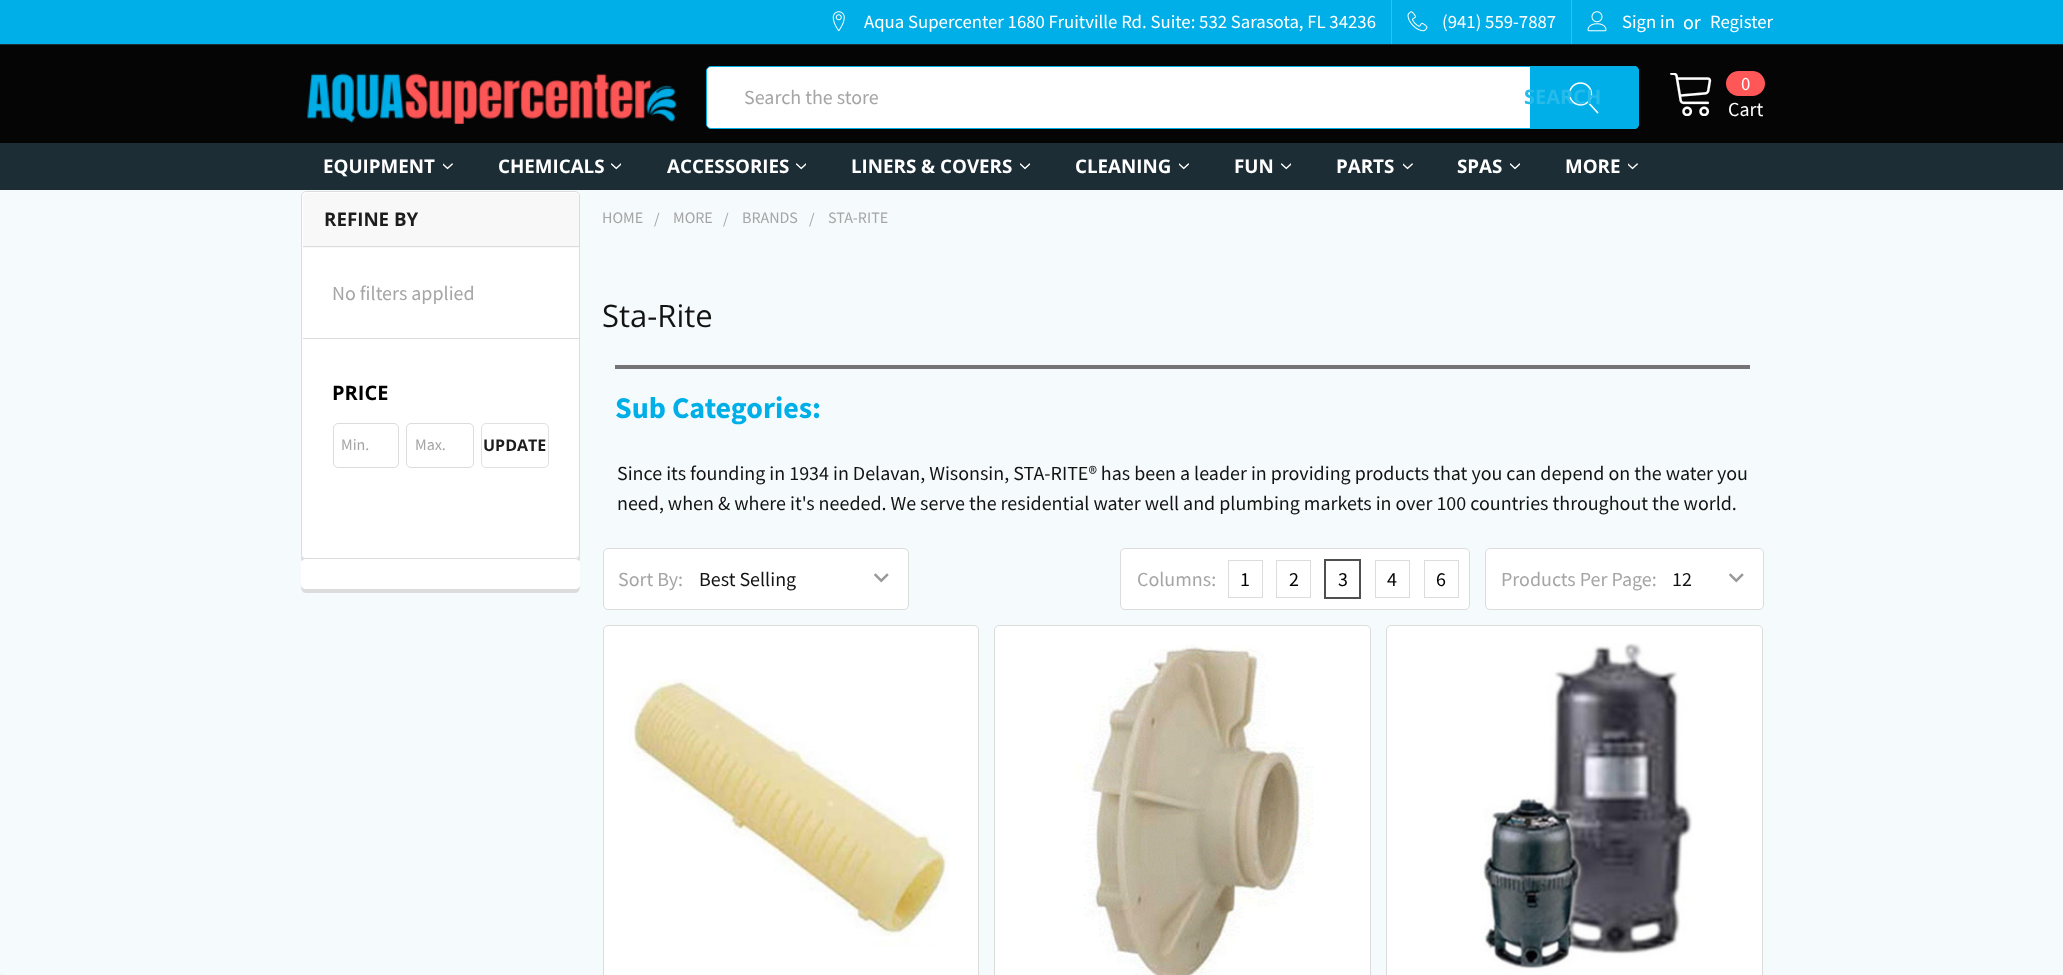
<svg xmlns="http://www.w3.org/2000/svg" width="2063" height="975">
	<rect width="100%" height="100%" fill="#F5FBFD" />
	<rect x="0" y="45" width="2063" height="98" fill="#050505" />
	<rect x="0" y="0" width="2063" height="44" fill="#00AFE8" />
	<rect x="0" y="44" width="2063" height="1" fill="#1D2D36" />
	<image x="832" y="11" width="13" height="21" href="assets/img1.png" />
	<text x="864" y="28" font-family="Source Sans Pro" font-size="18.75" fill="#FFFFFF">Aqua Supercenter 1680 Fruitville Rd. Suite: 532 Sarasota, FL 34236</text>
	<rect x="1391" y="0" width="1" height="44" fill="#33BFED" />
	<image x="1407" y="11" width="21" height="21" href="assets/img2.png" />
	<text x="1442" y="28" font-family="Source Sans Pro" font-size="18.75" fill="#FFFFFF">(941) 559-7887</text>
	<rect x="1571" y="0" width="1" height="44" fill="#33BFED" />
	<image x="1587" y="11" width="20" height="21" href="assets/img3.png" />
	<text x="1622" y="28" font-family="Source Sans Pro" font-size="18.75" fill="#FFFFFF">Sign in</text>
	<text x="1683" y="29" font-family="Source Sans Pro" font-size="20" fill="#FFFFFF">or</text>
	<text x="1710" y="28" font-family="Source Sans Pro" font-size="18.75" fill="#FFFFFF">Register</text>
	<image x="306" y="73" width="371" height="51" href="assets/img4.png" />
	<rect x="706.5" y="66.5" width="932" height="62" rx="4.5" fill="#FFFFFF" stroke="#00AFE8" />
	<path d="M1530 66H1634C1637 66 1639 68 1639 71V124C1639 127 1637 129 1634 129H1530Z" fill="#00AFE8" />
	<image x="1568" y="82" width="31" height="32" href="assets/img5.png" />
	<text x="744" y="104" font-family="Source Sans Pro" font-size="20" fill="#A5A5A5">Search the store</text>
	<text x="1524" y="104" font-family="Open Sans" font-size="20" font-weight="700" fill="#26BBEB">SEARCH</text>
	<image x="1670" y="73" width="42" height="43" href="assets/img6.png" />
	<rect x="1726" y="71" width="39" height="25" rx="12.5" fill="#FF5757" />
	<text x="1741" y="90" font-family="Source Sans Pro" font-size="18.75" fill="#FFFFFF">0</text>
	<text x="1728" y="116" font-family="Source Sans Pro" font-size="20" fill="#FFFFFF">Cart</text>
	<rect x="0" y="143" width="2063" height="47" fill="#1D2D36" />
	<text x="323" y="173" font-family="Open Sans" font-size="18.75" font-weight="700" fill="#FFFFFF">EQUIPMENT</text>
	<image x="443" y="163" width="10" height="7" href="assets/img7.png" />
	<text x="498" y="173" font-family="Open Sans" font-size="18.75" font-weight="700" fill="#FFFFFF">CHEMICALS</text>
	<image x="611" y="163" width="10" height="7" href="assets/img8.png" />
	<text x="667" y="173" font-family="Open Sans" font-size="18.75" font-weight="700" fill="#FFFFFF">ACCESSORIES</text>
	<image x="796" y="163" width="10" height="7" href="assets/img8.png" />
	<text x="851" y="173" font-family="Open Sans" font-size="18.75" font-weight="700" fill="#FFFFFF">LINERS &amp; COVERS</text>
	<image x="1020" y="163" width="10" height="7" href="assets/img9.png" />
	<text x="1075" y="173" font-family="Open Sans" font-size="18.75" font-weight="700" fill="#FFFFFF">CLEANING</text>
	<image x="1179" y="163" width="10" height="7" href="assets/img10.png" />
	<text x="1234" y="173" font-family="Open Sans" font-size="18.75" font-weight="700" fill="#FFFFFF">FUN</text>
	<image x="1281" y="163" width="10" height="7" href="assets/img8.png" />
	<text x="1336" y="173" font-family="Open Sans" font-size="18.75" font-weight="700" fill="#FFFFFF">PARTS</text>
	<image x="1403" y="163" width="10" height="7" href="assets/img7.png" />
	<text x="1457" y="173" font-family="Open Sans" font-size="18.75" font-weight="700" fill="#FFFFFF">SPAS</text>
	<image x="1510" y="163" width="10" height="7" href="assets/img9.png" />
	<text x="1565" y="173" font-family="Open Sans" font-size="18.75" font-weight="700" fill="#FFFFFF">MORE</text>
	<image x="1628" y="163" width="10" height="7" href="assets/img7.png" />
	<path d="M301 198V558C301 561 303 563 306 563H575C578 563 580 561 580 558V554C580 557 578 559 575 559H306C303 559 301 557 301 554Z" fill="#DCDCDC" />
	<rect x="301.5" y="191.5" width="278" height="367" rx="4.5" fill="#FFFFFF" stroke="#DCDCDC" />
	<rect x="303" y="338" width="276" height="1" fill="#DCDCDC" />
	<path d="M307 193H575C577 193 579 195 579 197V248H303V197C303 195 305 193 307 193Z" fill="#F8F8F8" />
	<rect x="303" y="246" width="276" height="1" fill="#DCDCDC" />
	<text x="324" y="226" font-family="Open Sans" font-size="18.75" font-weight="700" fill="#1D1D1D">REFINE BY</text>
	<text x="332" y="300" font-family="Source Sans Pro" font-size="20" fill="#A5A5A5">No filters applied</text>
	<text x="332" y="400" font-family="Open Sans" font-size="20" font-weight="700" fill="#000000">PRICE</text>
	<rect x="333.5" y="423.5" width="65" height="44" rx="4.5" fill="none" stroke="#DCDCDC" />
	<text x="341" y="450" font-family="Source Sans Pro" font-size="16" fill="#A5A5A5">Min.</text>
	<rect x="406.5" y="423.5" width="67" height="44" rx="4.5" fill="none" stroke="#DCDCDC" />
	<text x="415" y="450" font-family="Source Sans Pro" font-size="16" fill="#A5A5A5">Max.</text>
	<rect x="481.5" y="423.5" width="67" height="44" rx="4.5" fill="none" stroke="#E0E1E4" />
	<text x="483" y="451" font-family="Open Sans" font-size="16" font-weight="700" fill="#1D1D1D">UPDATE</text>
	<g font-family="Source Sans Pro" font-size="16" fill="#A5A5A5">
		<text x="602" y="223">HOME</text>
		<text x="654" y="224">/</text>
		<text x="673" y="223">MORE</text>
		<text x="723" y="224">/</text>
		<text x="742" y="223">BRANDS</text>
		<text x="809" y="224">/</text>
		<text x="828" y="223">STA-RITE</text>
	</g>
	<text x="602" y="327" font-family="Open Sans" font-size="31" fill="#131313">Sta-Rite</text>
	<rect x="615" y="365" width="1135" height="4" fill="#757575" />
	<text x="615" y="418" font-family="Source Sans Pro" font-size="30" font-weight="700" fill="#00AFE8">Sub Categories:</text>
	<g font-family="Source Sans Pro" font-size="20" fill="#131313">
		<text x="617" y="480">Since its founding in 1934 in Delavan, Wisonsin, STA-RITE® has been a leader in providing products that you can depend on the water you</text>
		<text x="617" y="510">need, when &amp; where it's needed. We serve the residential water well and plumbing markets in over 100 countries throughout the world.</text>
	</g>
	<rect x="603.5" y="548.5" width="305" height="61" rx="4.5" fill="#FFFFFF" stroke="#DCDCDC" />
	<text x="618" y="586" font-family="Source Sans Pro" font-size="20" fill="#A5A5A5">Sort By:</text>
	<image x="874" y="573" width="15" height="10" href="assets/img11.png" />
	<text x="699" y="586" font-family="Source Sans Pro" font-size="20" fill="#131313">Best Selling</text>
	<rect x="1120.5" y="548.5" width="349" height="61" rx="4.5" fill="#FFFFFF" stroke="#DCDCDC" />
	<text x="1137" y="586" font-family="Source Sans Pro" font-size="20" fill="#A5A5A5">Columns:</text>
	<rect x="1228.5" y="560.5" width="34" height="37" fill="none" stroke="#DCDCDC" />
	<text x="1240" y="586" font-family="Source Sans Pro" font-size="20" fill="#000000">1</text>
	<rect x="1276.5" y="560.5" width="34" height="37" fill="none" stroke="#DCDCDC" />
	<text x="1289" y="586" font-family="Source Sans Pro" font-size="20" fill="#000000">2</text>
	<rect x="1324.5" y="559.5" width="36" height="39" fill="none" stroke="#4F4F4F" />
	<rect x="1325.5" y="560.5" width="34" height="37" fill="none" stroke="#4F4F4F" />
	<text x="1338" y="586" font-family="Source Sans Pro" font-size="20" fill="#000000">3</text>
	<rect x="1375.5" y="560.5" width="34" height="37" fill="none" stroke="#DCDCDC" />
	<text x="1387" y="586" font-family="Source Sans Pro" font-size="20" fill="#000000">4</text>
	<rect x="1424.5" y="560.5" width="34" height="37" fill="none" stroke="#DCDCDC" />
	<text x="1436" y="586" font-family="Source Sans Pro" font-size="20" fill="#000000">6</text>
	<rect x="1485.5" y="548.5" width="278" height="61" rx="4.5" fill="#FFFFFF" stroke="#DCDCDC" />
	<text x="1501" y="586" font-family="Source Sans Pro" font-size="20" fill="#A5A5A5">Products Per Page:</text>
	<image x="1729" y="573" width="15" height="10" href="assets/img11.png" />
	<text x="1672" y="586" font-family="Source Sans Pro" font-size="20" fill="#131313">12</text>
	<rect x="603.5" y="625.5" width="375" height="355" rx="4.5" fill="#FFFFFF" stroke="#DCDCDC" />
	<image x="629" y="679" width="320" height="268" href="assets/img12.png" />
	<rect x="994.5" y="625.5" width="376" height="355" rx="4.5" fill="#FFFFFF" stroke="#DCDCDC" />
	<image x="1074" y="643" width="240" height="332" href="assets/img13.png" />
	<rect x="1386.5" y="625.5" width="376" height="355" rx="4.5" fill="#FFFFFF" stroke="#DCDCDC" />
	<image x="1480" y="643" width="213" height="326" href="assets/img14.png" />
	<path d="M301 566V581C301 585 300 593 306 593H575C580 593 580 587 580 584C580 587 578 589 575 589H306C303 589 301 587 301 584Z" fill="#DCDCDC" />
	<rect x="301" y="559" width="279" height="30" rx="5" fill="#FFFFFF" />
	<rect x="0" y="973" width="3" height="2" fill="#F5F5F5" />
</svg>
